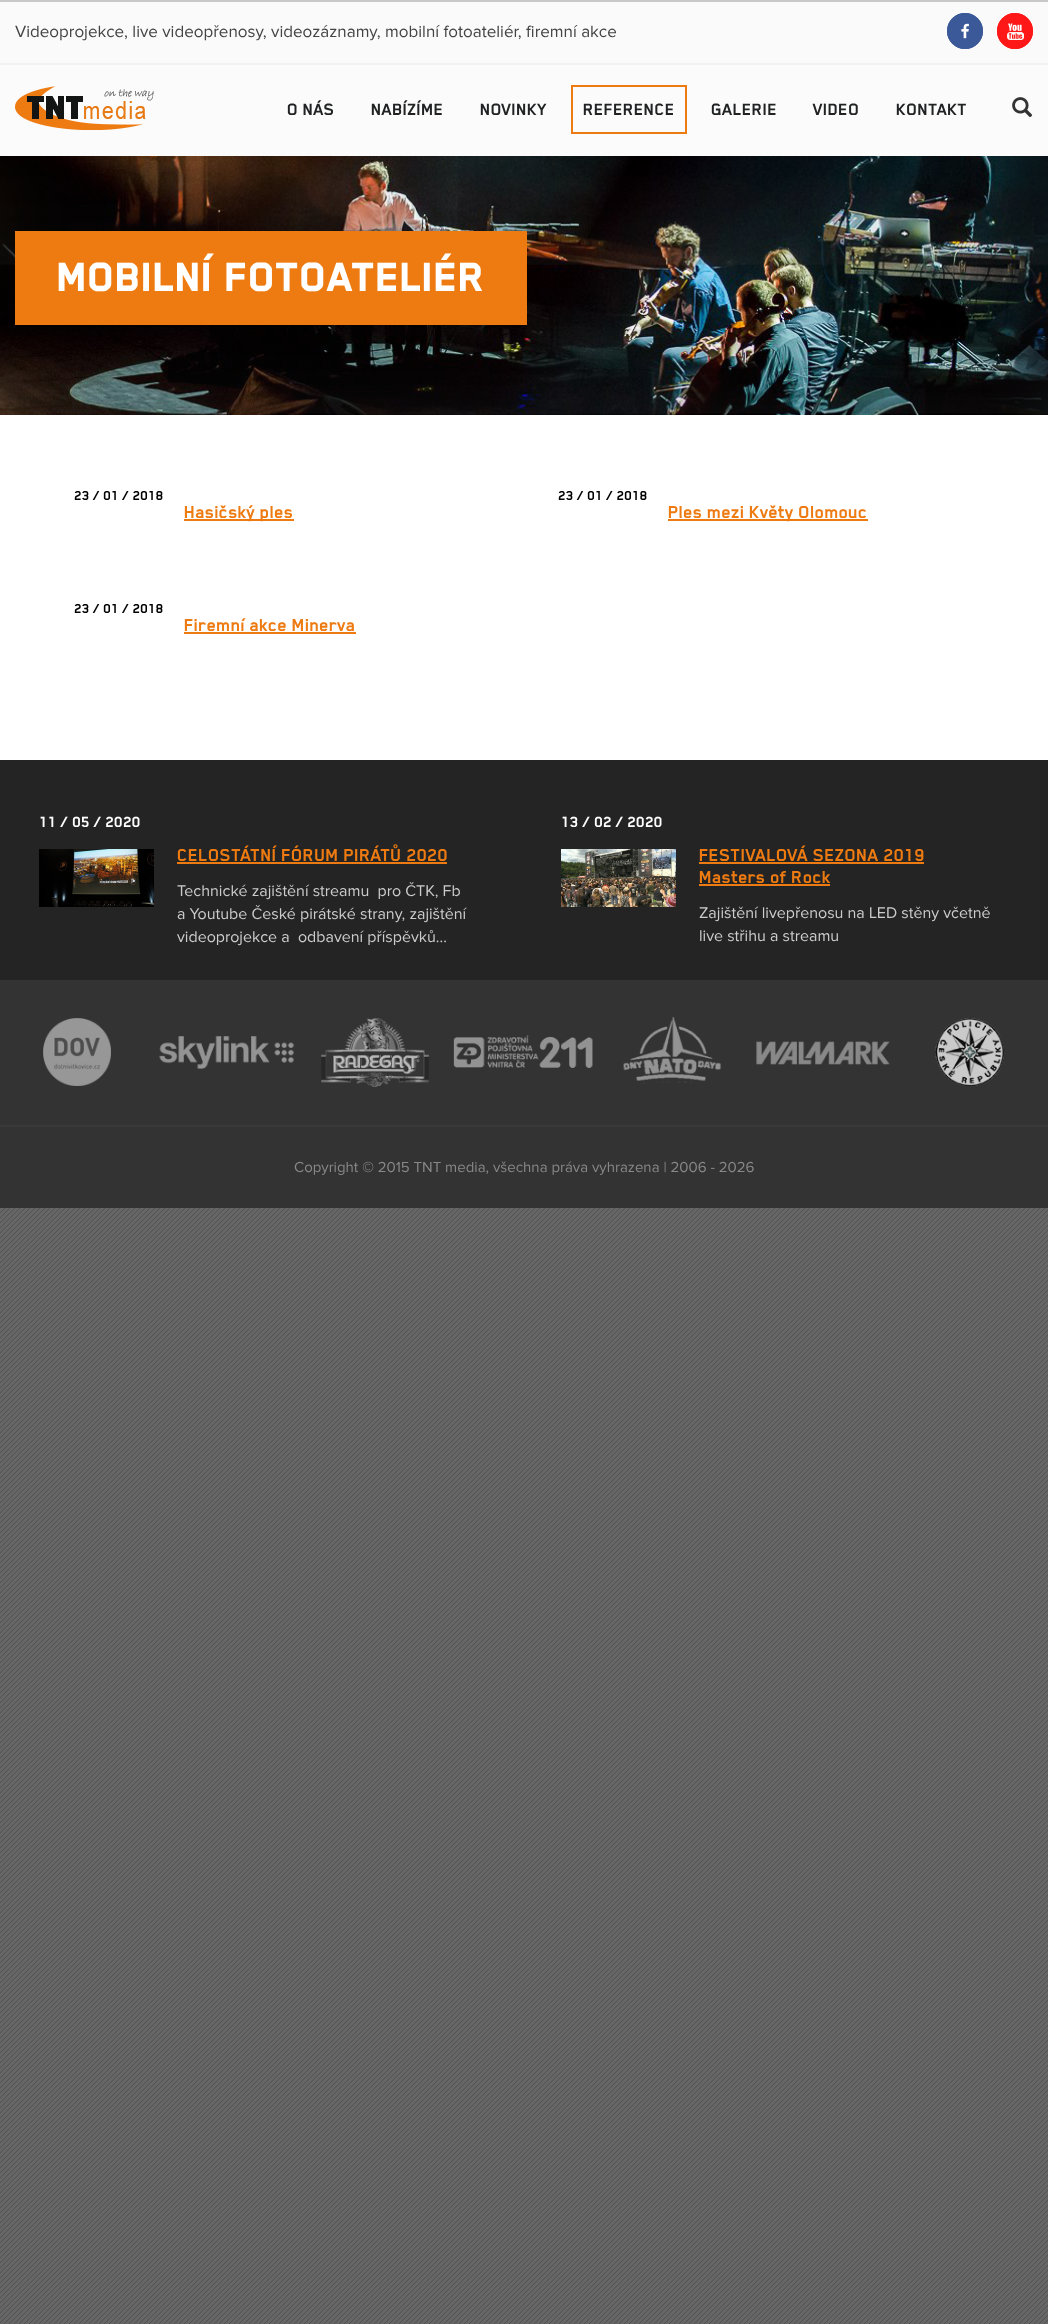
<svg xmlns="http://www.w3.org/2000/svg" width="1048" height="2324">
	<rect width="100%" height="100%" fill="#666666" />
	<image x="0" y="1208" width="1048" height="1116" href="assets/img1.png" />
	<rect x="0" y="0" width="1048" height="2" fill="#C8C8C8" />
	<rect x="0" y="156" width="1048" height="1052" fill="#333333" />
	<rect x="0" y="2" width="1048" height="61" fill="#FAFAFA" />
	<rect x="0" y="63" width="1048" height="2" fill="#F2F2F2" />
	<text x="15" y="37" font-family="Proxima Nova" font-size="17" fill="#444444">Videoprojekce, live videopřenosy, videozáznamy, mobilní fotoateliér, firemní akce</text>
	<circle cx="965" cy="31" r="18" fill="#3B5998" />
	<image x="961" y="23" width="8" height="16" href="assets/img2.png" />
	<circle cx="965" cy="31" r="17" fill="none" stroke="#3B5998" stroke-width="2" />
	<circle cx="1015" cy="31" r="18" fill="#FF1818" />
	<image x="1007" y="23" width="17" height="17" href="assets/img3.png" />
	<circle cx="1015" cy="31" r="17" fill="none" stroke="#FF1818" stroke-width="2" />
	<rect x="0" y="65" width="1048" height="91" fill="#FBFBFB" />
	<image x="15" y="86" width="139" height="44" href="assets/img4.png" />
	<g font-family="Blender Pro" font-size="19" font-weight="700" fill="#212223">
		<text x="287" y="115">O NÁS</text>
		<text x="371" y="115">NABÍZÍME</text>
		<text x="480" y="115">NOVINKY</text>
	</g>
	<rect x="572" y="86" width="114" height="47" fill="none" stroke="#EE7B11" stroke-width="2" />
	<g font-family="Blender Pro" font-size="19" font-weight="700" fill="#212223">
		<text x="583" y="115">REFERENCE</text>
		<text x="711" y="115">GALERIE</text>
		<text x="813" y="115">VIDEO</text>
		<text x="896" y="115">KONTAKT</text>
	</g>
	<image x="1012" y="97" width="21" height="21" href="assets/img5.png" />
	<image x="0" y="156" width="1048" height="259" href="assets/img6.png" />
	<rect x="15" y="231" width="512" height="94" fill="#EE7B11" />
	<text x="57" y="291" font-family="Blender Pro" font-size="47" font-weight="900" fill="#FFFFFF">MOBILNÍ FOTOATELIÉR</text>
	<rect x="0" y="415" width="1048" height="345" fill="#FFFFFF" />
	<text x="74" y="500" font-family="Blender Pro" font-size="15" font-weight="700" fill="#000000">23 / 01 / 2018</text>
	<rect x="184" y="519" width="110" height="2" fill="#EE7B11" />
	<text x="184" y="518" font-family="Blender Pro" font-size="20" font-weight="700" fill="#EE7B11">Hasičský ples</text>
	<text x="558" y="500" font-family="Blender Pro" font-size="15" font-weight="700" fill="#000000">23 / 01 / 2018</text>
	<rect x="668" y="519" width="200" height="2" fill="#EE7B11" />
	<text x="668" y="518" font-family="Blender Pro" font-size="20" font-weight="700" fill="#EE7B11">Ples mezi Květy Olomouc</text>
	<text x="74" y="613" font-family="Blender Pro" font-size="15" font-weight="700" fill="#000000">23 / 01 / 2018</text>
	<text x="184" y="631" font-family="Blender Pro" font-size="20" font-weight="700" fill="#EE7B11">Firemní akce Minerva</text>
	<rect x="184" y="632" width="172" height="2" fill="#EE7B11" />
	<rect x="0" y="760" width="1048" height="220" fill="#242424" />
	<text x="39" y="827" font-family="Blender Pro" font-size="17" font-weight="700" fill="#FFFFFF">11 / 05 / 2020</text>
	<image x="39" y="849" width="115" height="58" href="assets/img7.png" />
	<text x="177" y="861" font-family="Blender Pro" font-size="20" font-weight="700" fill="#EE7B11">CELOSTÁTNÍ FÓRUM PIRÁTŮ 2020</text>
	<rect x="177" y="862" width="270" height="2" fill="#EE7B11" />
	<g font-family="Proxima Nova" font-size="16" fill="#CCCCCC">
		<text x="177" y="896" xml:space="preserve">Technické zajištění streamu  pro ČTK, Fb</text>
		<text x="177" y="919">a Youtube České pirátské strany, zajištění</text>
		<text x="177" y="942" xml:space="preserve">videoprojekce a  odbavení příspěvků...</text>
	</g>
	<text x="561" y="827" font-family="Blender Pro" font-size="17" font-weight="700" fill="#FFFFFF">13 / 02 / 2020</text>
	<image x="561" y="849" width="115" height="58" href="assets/img8.png" />
	<text x="699" y="861" font-family="Blender Pro" font-size="20" font-weight="700" fill="#EE7B11">FESTIVALOVÁ SEZONA 2019</text>
	<rect x="699" y="862" width="225" height="2" fill="#EE7B11" />
	<text x="699" y="883" font-family="Blender Pro" font-size="20" font-weight="700" fill="#EE7B11">Masters of Rock</text>
	<rect x="699" y="884" width="131" height="2" fill="#EE7B11" />
	<g font-family="Proxima Nova" font-size="16" fill="#CCCCCC">
		<text x="699" y="918">Zajištění livepřenosu na LED stěny včetně</text>
		<text x="699" y="941">live střihu a streamu</text>
	</g>
	<image x="43" y="1018" width="68" height="68" href="assets/img9.png" />
	<image x="159" y="1036" width="135" height="33" href="assets/img10.png" />
	<image x="321" y="1018" width="108" height="69" href="assets/img11.png" />
	<image x="453" y="1035" width="140" height="33" href="assets/img12.png" />
	<image x="623" y="1017" width="98" height="67" href="assets/img13.png" />
	<image x="756" y="1041" width="134" height="24" href="assets/img14.png" />
	<image x="935" y="1018" width="69" height="68" href="assets/img15.png" />
	<rect x="0" y="1125" width="1048" height="2" fill="#393939" />
	<text x="294" y="1172" font-family="Proxima Nova" font-size="15" fill="#888888">Copyright © 2015 TNT media, všechna práva vyhrazena | 2006 - 2026</text>
</svg>
